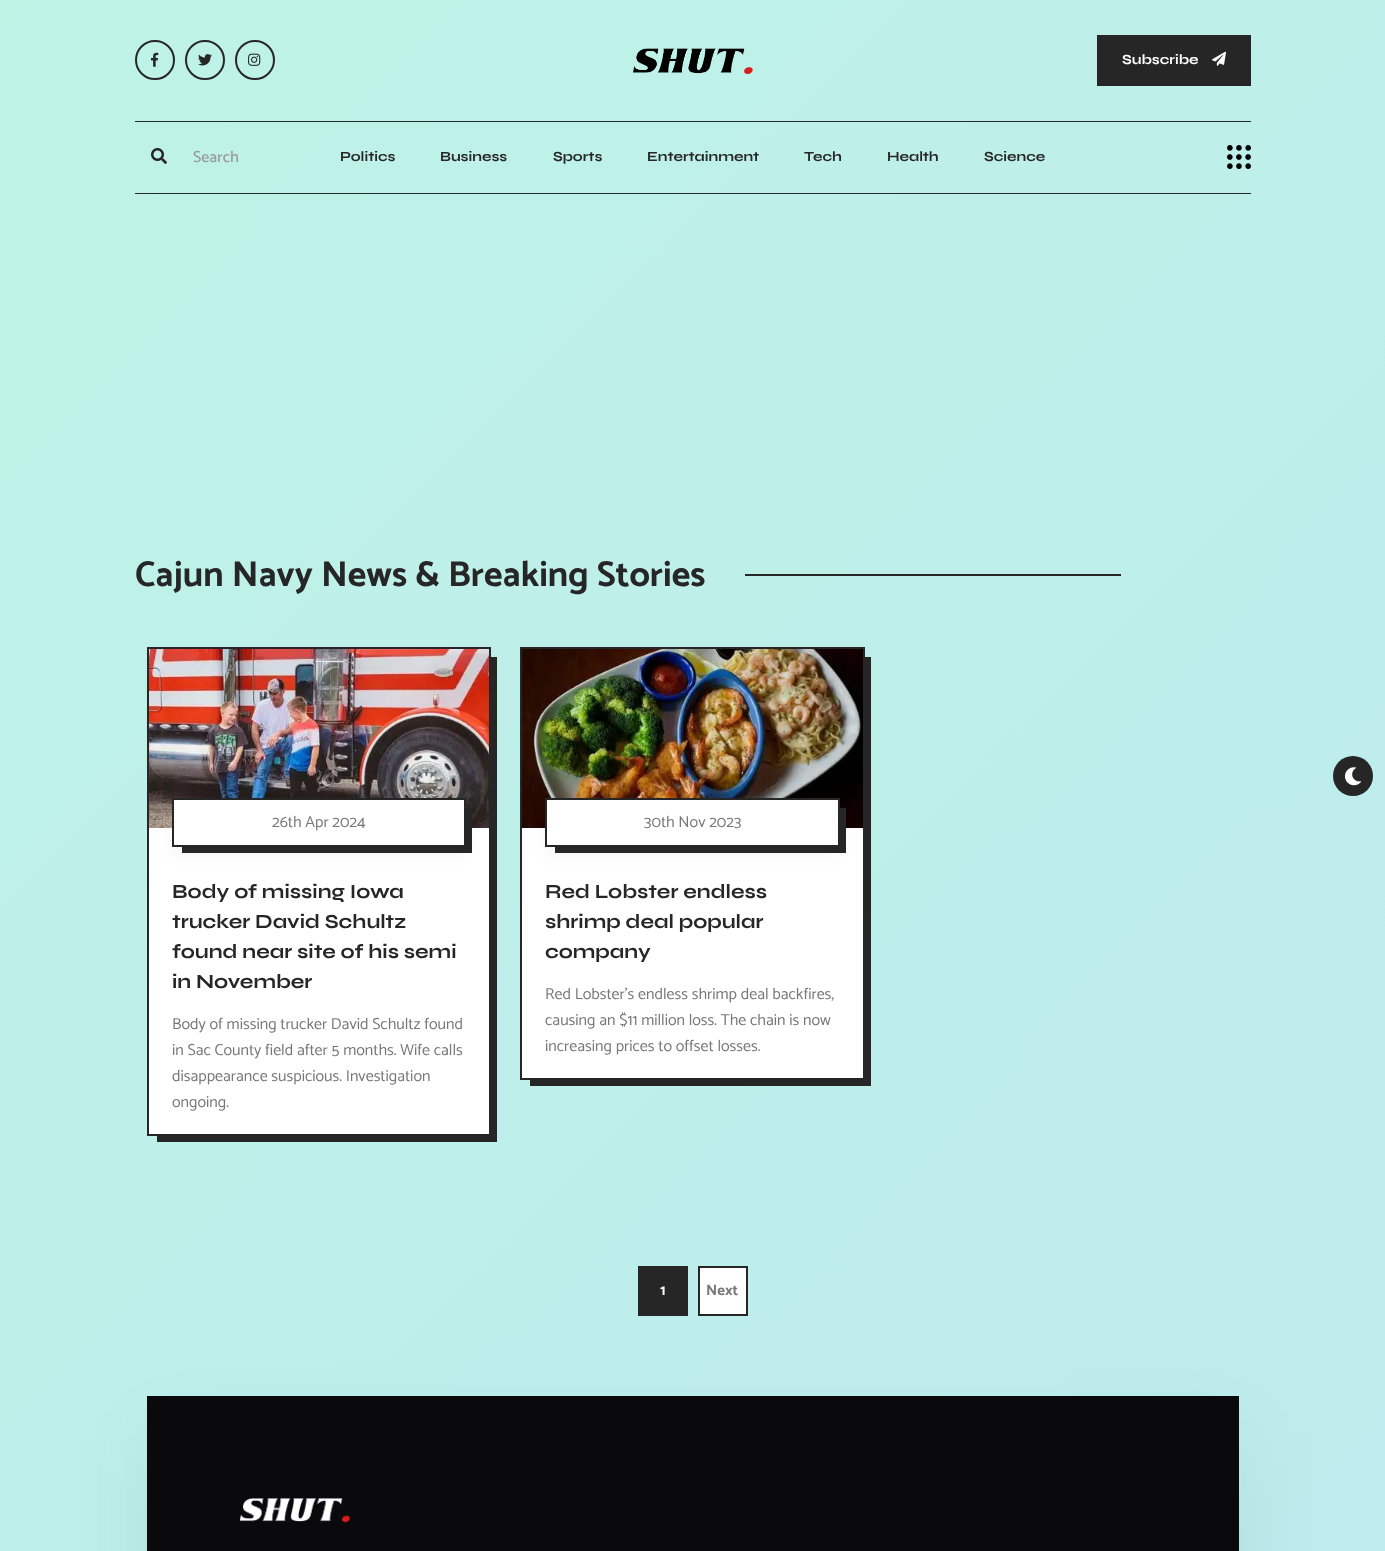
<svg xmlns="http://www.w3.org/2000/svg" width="1385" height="1551">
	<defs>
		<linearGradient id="g1" gradientUnits="userSpaceOnUse" x1="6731" y1="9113" x2="-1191" y2="1191"><stop offset="0" stop-color="#FBD7CC" /><stop offset="0.33" stop-color="#F8C5D9" /><stop offset="0.67" stop-color="#BEE5F3" /><stop offset="1" stop-color="#BEF3E6" /></linearGradient>
	</defs>
	<rect width="100%" height="100%" fill="#FFFFFF" />
	<rect x="0" y="0" width="1385" height="1551" fill="url(#g1)" />
	<circle cx="155" cy="60" r="19" fill="none" stroke="#262626" stroke-width="2" />
	<image x="151" y="52" width="8" height="15" href="assets/img1.png" />
	<circle cx="205" cy="60" r="19" fill="none" stroke="#262626" stroke-width="2" />
	<image x="198" y="54" width="14" height="12" href="assets/img2.png" />
	<circle cx="255" cy="60" r="19" fill="none" stroke="#262626" stroke-width="2" />
	<image x="248" y="53" width="13" height="13" href="assets/img3.png" />
	<image x="633" y="48" width="120" height="26" href="assets/img4.png" />
	<rect x="1097" y="35" width="154" height="51" fill="#262626" />
	<text x="1122" y="64" font-family="Syne" font-size="14" font-weight="700" fill="#FFFFFF">Subscribe</text>
	<image x="1212" y="51" width="14" height="15" href="assets/img5.png" />
	<rect x="135" y="121" width="1116" height="1" fill="#262626" />
	<rect x="135" y="193" width="1116" height="1" fill="#262626" />
	<image x="151" y="148" width="16" height="16" href="assets/img6.png" />
	<text x="193" y="162" font-family="Catamaran" font-size="16" font-weight="500" fill="#999999">Search</text>
	<g font-family="Syne" font-size="14" font-weight="700" fill="#262626">
		<text x="340" y="161">Politics</text>
		<text x="440" y="161">Business</text>
		<text x="553" y="161">Sports</text>
		<text x="647" y="161">Entertainment</text>
		<text x="804" y="161">Tech</text>
		<text x="887" y="161">Health</text>
		<text x="984" y="161">Science</text>
	</g>
	<image x="1227" y="145" width="24" height="24" href="assets/img7.png" />
	<text x="135" y="586" font-family="Catamaran" font-size="36" font-weight="700" fill="#262626">Cajun Navy News &amp; Breaking Stories</text>
	<rect x="745" y="574" width="376" height="2" fill="#262626" />
	<image x="149" y="649" width="340" height="179" href="assets/img8.png" />
	<rect x="149" y="828" width="340" height="306" fill="#FFFFFF" />
	<rect x="148" y="648" width="342" height="487" fill="none" stroke="#262626" stroke-width="2" />
	<rect x="491" y="657" width="6" height="485" fill="#262626" />
	<rect x="157" y="1136" width="340" height="6" fill="#262626" />
	<rect x="172" y="806" width="294" height="49" fill="#000000" fill-opacity="0.04" filter="blur(8px)" />
	<rect x="173" y="799" width="292" height="47" fill="#FFFFFF" stroke="#262626" stroke-width="2" />
	<rect x="466" y="808" width="6" height="45" fill="#262626" />
	<rect x="182" y="847" width="290" height="6" fill="#262626" />
	<text x="272" y="827" font-family="Catamaran" font-size="16" fill="#777777">26th Apr 2024</text>
	<g font-family="Syne" font-size="20" font-weight="700" fill="#262626">
		<text x="172" y="898">Body of missing Iowa</text>
		<text x="172" y="928">trucker David Schultz</text>
		<text x="172" y="958">found near site of his semi</text>
		<text x="172" y="988">in November</text>
	</g>
	<g font-family="Catamaran" font-size="16" fill="#777777">
		<text x="172" y="1029">Body of missing trucker David Schultz found</text>
		<text x="172" y="1055">in Sac County field after 5 months. Wife calls</text>
		<text x="172" y="1081">disappearance suspicious. Investigation</text>
		<text x="172" y="1107">ongoing.</text>
	</g>
	<image x="522" y="649" width="341" height="179" href="assets/img9.png" />
	<rect x="522" y="828" width="341" height="250" fill="#FFFFFF" />
	<rect x="521" y="648" width="343" height="431" fill="none" stroke="#262626" stroke-width="2" />
	<rect x="865" y="657" width="6" height="429" fill="#262626" />
	<rect x="530" y="1080" width="341" height="6" fill="#262626" />
	<rect x="545" y="806" width="295" height="49" fill="#000000" fill-opacity="0.04" filter="blur(8px)" />
	<rect x="546" y="799" width="293" height="47" fill="#FFFFFF" stroke="#262626" stroke-width="2" />
	<rect x="840" y="808" width="6" height="45" fill="#262626" />
	<rect x="555" y="847" width="291" height="6" fill="#262626" />
	<text x="644" y="827" font-family="Catamaran" font-size="16" fill="#777777">30th Nov 2023</text>
	<g font-family="Syne" font-size="20" font-weight="700" fill="#262626">
		<text x="545" y="898">Red Lobster endless</text>
		<text x="545" y="928">shrimp deal popular</text>
		<text x="545" y="958">company</text>
	</g>
	<g font-family="Catamaran" font-size="16" fill="#777777">
		<text x="545" y="999">Red Lobster's endless shrimp deal backfires,</text>
		<text x="545" y="1025">causing an $11 million loss. The chain is now</text>
		<text x="545" y="1051">increasing prices to offset losses.</text>
	</g>
	<rect x="638" y="1266" width="50" height="50" fill="#262626" />
	<text x="660" y="1295" font-family="Catamaran" font-size="15" font-weight="700" fill="#FFFFFF">1</text>
	<rect x="699" y="1267" width="48" height="48" fill="#FFFFFF" stroke="#262626" stroke-width="2" />
	<text x="706" y="1295" font-family="Catamaran" font-size="15" font-weight="700" fill="#777777">Next</text>
	<rect x="147" y="1436" width="1092" height="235" fill="#000000" fill-opacity="0.06" filter="blur(40px)" />
	<rect x="147" y="1396" width="1092" height="155" fill="#0A0A0D" />
	<image x="240" y="1498" width="110" height="25" href="assets/img10.png" />
	<circle cx="1353" cy="776" r="20" fill="#262626" />
	<image x="1344" y="767" width="17" height="19" href="assets/img11.png" />
</svg>
